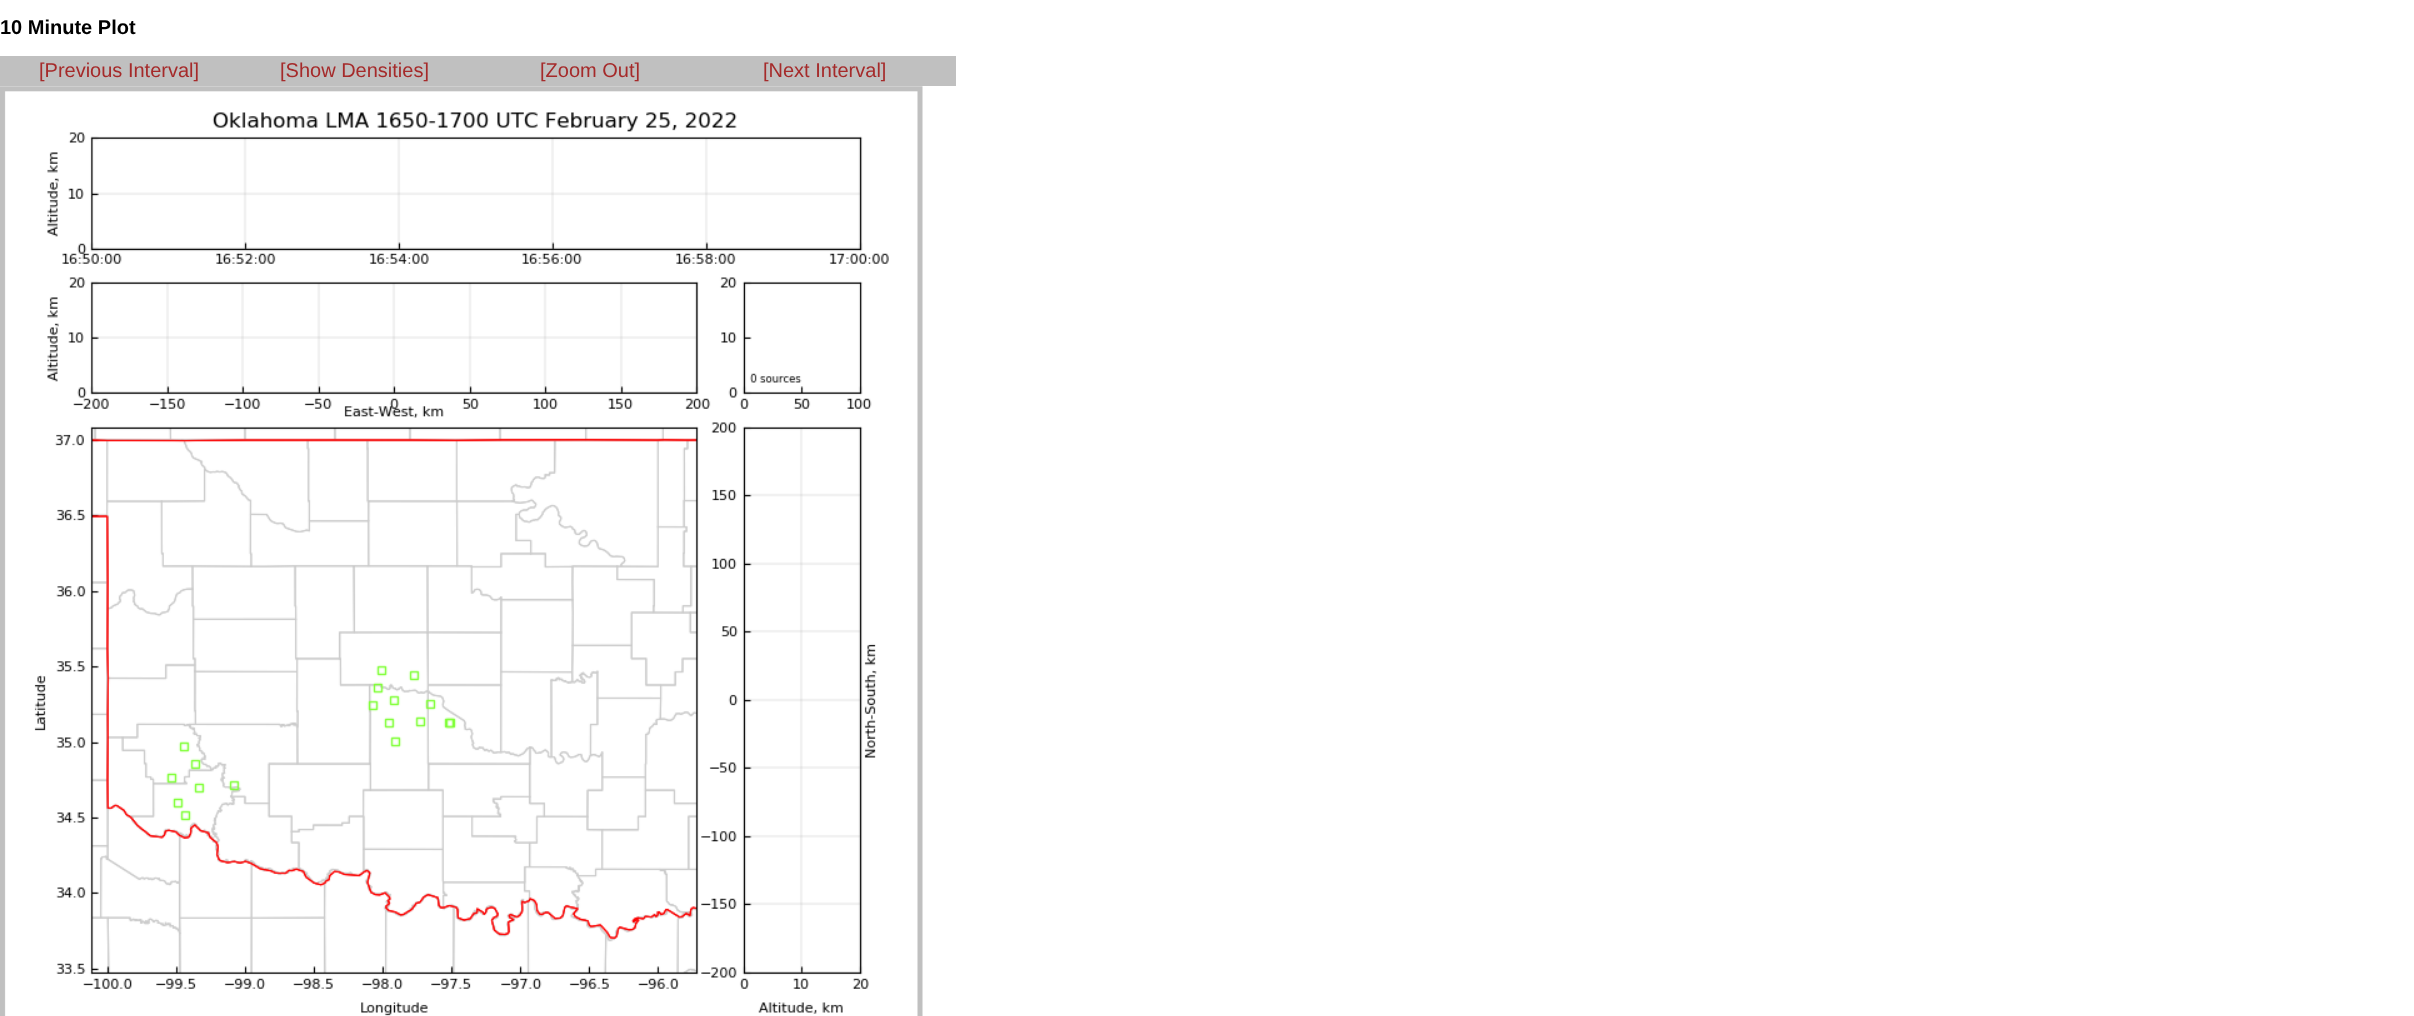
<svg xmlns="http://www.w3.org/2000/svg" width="2414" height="1016">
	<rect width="100%" height="100%" fill="#FFFFFF" />
	<text x="0" y="34" font-family="Liberation Sans" font-size="20" font-weight="700" fill="#000000">10 Minute Plot</text>
	<rect x="0" y="56" width="956" height="30" fill="#C0C0C0" />
	<g font-family="Liberation Sans" font-size="20" fill="#A52A2A">
		<text x="39" y="77">[Previous Interval]</text>
		<text x="280" y="77">[Show Densities]</text>
		<text x="540" y="77">[Zoom Out]</text>
		<text x="763" y="77">[Next Interval]</text>
	</g>
	<image x="0" y="86" width="923" height="930" href="assets/img1.png" />
</svg>
